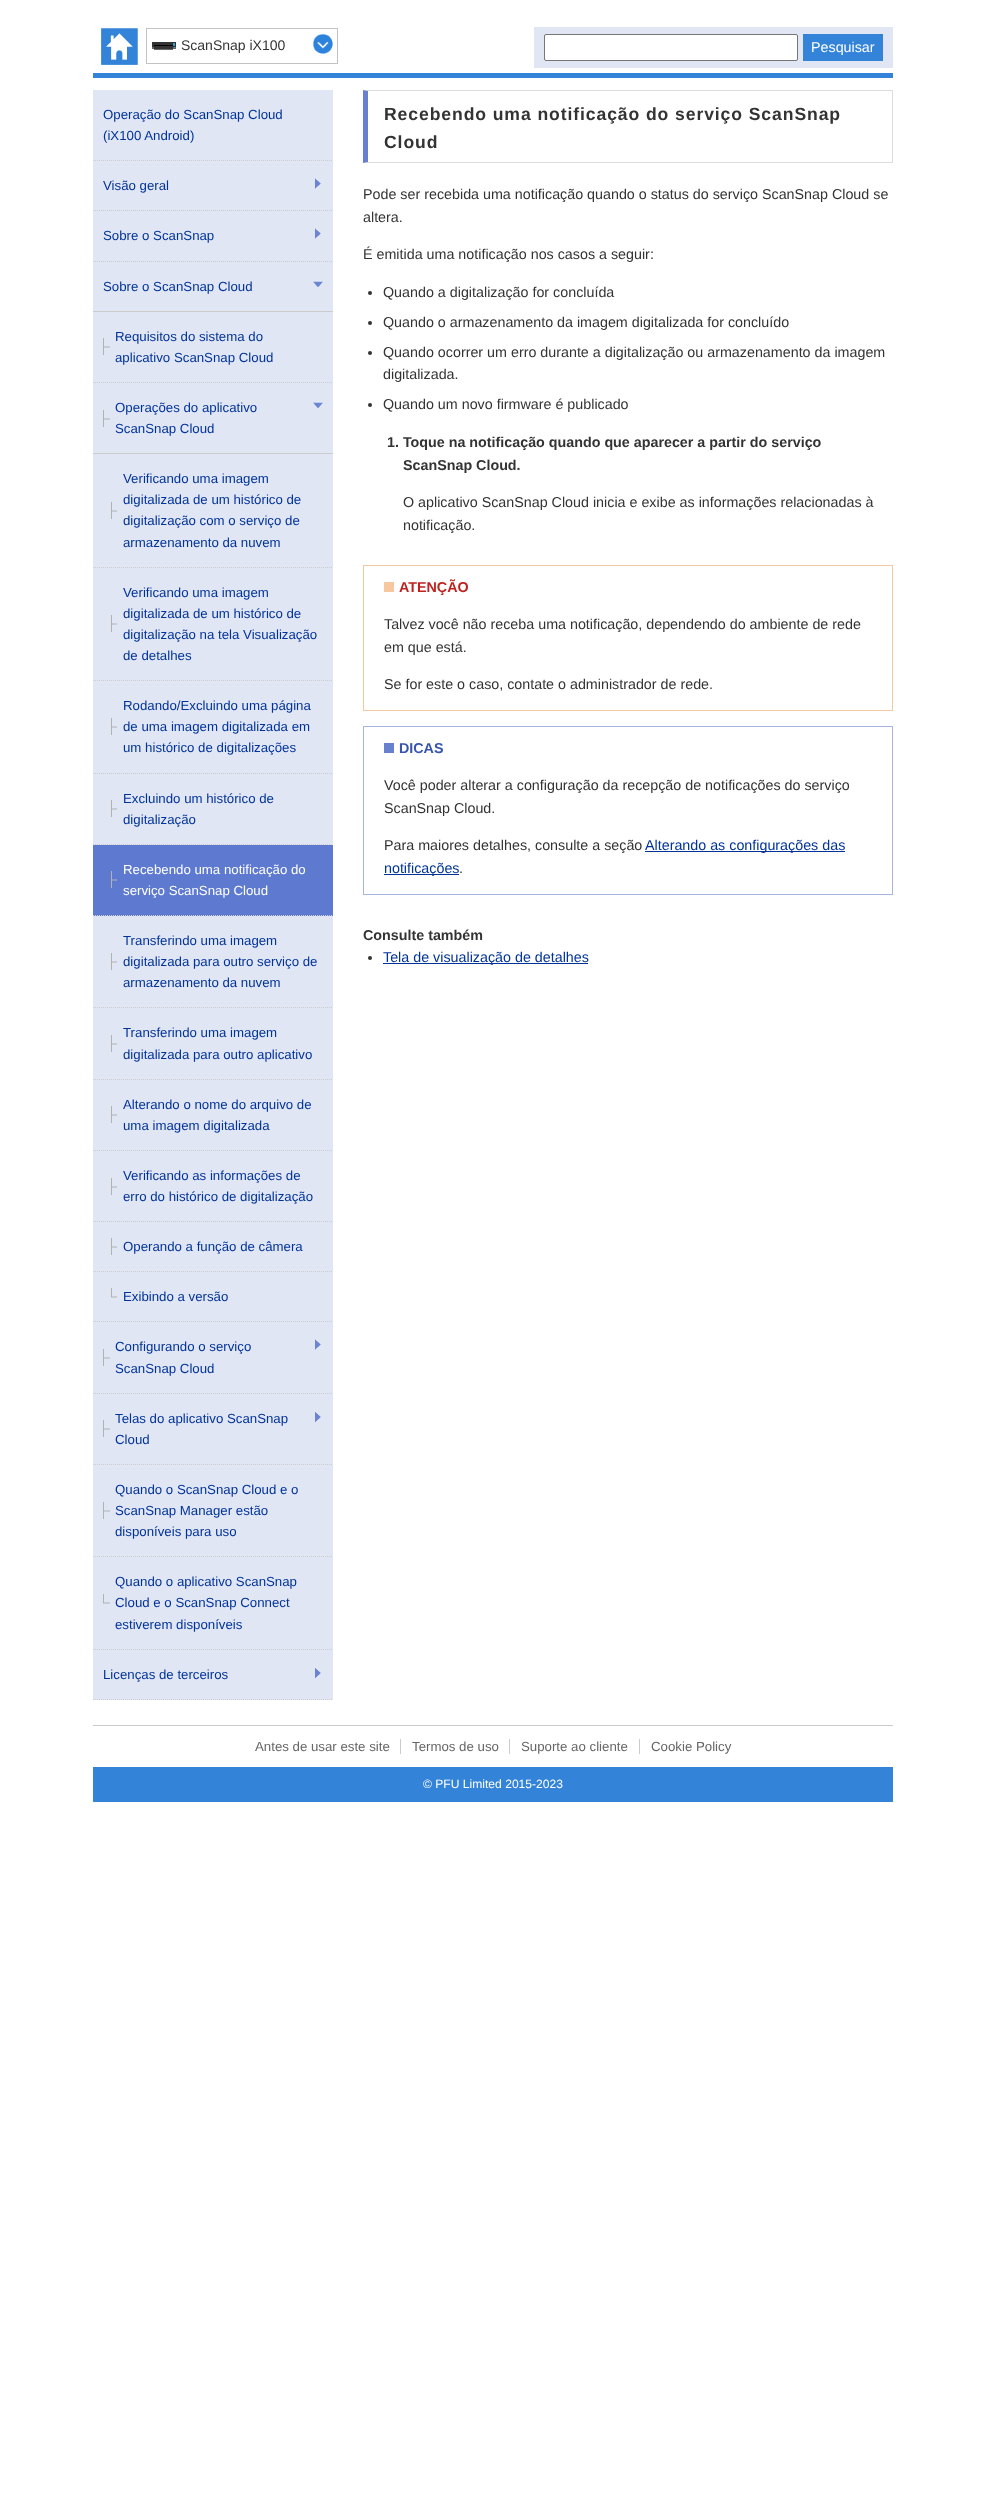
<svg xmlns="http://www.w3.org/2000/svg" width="985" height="2495">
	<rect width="100%" height="100%" fill="#FFFFFF" />
	<rect x="146.5" y="28.5" width="191" height="35" fill="none" stroke="#C3C3C3" />
	<image x="152" y="42" width="24" height="8" href="assets/img1.png" />
	<text x="181" y="50" font-family="Liberation Sans" font-size="14" fill="#333333">ScanSnap iX100</text>
	<image x="313" y="34" width="20" height="20" href="assets/img2.png" />
	<rect x="93" y="73" width="800" height="5" fill="#3384D9" />
	<image x="101" y="28" width="37" height="37" href="assets/img3.png" />
	<rect x="534" y="27" width="359" height="41" fill="#E1E6F5" />
	<rect x="544.5" y="34.5" width="253" height="26" rx="1.5" fill="#FFFFFF" stroke="#767676" />
	<rect x="803" y="34" width="80" height="27" fill="#3384D9" />
	<text x="811" y="52" font-family="Liberation Sans" font-size="14.3" fill="#FFFFFF">Pesquisar</text>
	<rect x="93" y="90" width="240" height="1610" fill="#E1E6F5" />
	<path d="M93 160.5H333" fill="none" stroke="#CCCCCC" stroke-dasharray="1 1" />
	<g font-family="Liberation Sans" font-size="13.25" fill="#003399">
		<text x="103" y="119">Operação do ScanSnap Cloud</text>
		<text x="103" y="140">(iX100 Android)</text>
	</g>
	<image x="315" y="178" width="6" height="11" href="assets/img4.png" />
	<path d="M93 210.5H333" fill="none" stroke="#CCCCCC" stroke-dasharray="1 1" />
	<text x="103" y="190" font-family="Liberation Sans" font-size="13.25" fill="#003399">Visão geral</text>
	<image x="315" y="228" width="6" height="11" href="assets/img4.png" />
	<path d="M93 261.5H333" fill="none" stroke="#CCCCCC" stroke-dasharray="1 1" />
	<text x="103" y="240" font-family="Liberation Sans" font-size="13.25" fill="#003399">Sobre o ScanSnap</text>
	<image x="313" y="281" width="10" height="6" href="assets/img5.png" />
	<text x="103" y="291" font-family="Liberation Sans" font-size="13.25" fill="#003399">Sobre o ScanSnap Cloud</text>
	<rect x="93" y="311" width="240" height="1" fill="#CCCCCC" />
	<path d="M93 382.5H333" fill="none" stroke="#CCCCCC" stroke-dasharray="1 1" />
	<image x="103" y="338" width="7" height="17" href="assets/img6.png" />
	<g font-family="Liberation Sans" font-size="13.25" fill="#003399">
		<text x="115" y="341">Requisitos do sistema do</text>
		<text x="115" y="362">aplicativo ScanSnap Cloud</text>
	</g>
	<image x="313" y="402" width="10" height="6" href="assets/img5.png" />
	<image x="103" y="410" width="7" height="17" href="assets/img6.png" />
	<g font-family="Liberation Sans" font-size="13.25" fill="#003399">
		<text x="115" y="412">Operações do aplicativo</text>
		<text x="115" y="433">ScanSnap Cloud</text>
	</g>
	<rect x="93" y="453" width="240" height="1" fill="#CCCCCC" />
	<path d="M93 567.5H333" fill="none" stroke="#CCCCCC" stroke-dasharray="1 1" />
	<image x="111" y="502" width="6" height="17" href="assets/img7.png" />
	<g font-family="Liberation Sans" font-size="13.25" fill="#003399">
		<text x="123" y="483">Verificando uma imagem</text>
		<text x="123" y="504">digitalizada de um histórico de</text>
		<text x="123" y="525">digitalização com o serviço de</text>
		<text x="123" y="547">armazenamento da nuvem</text>
	</g>
	<path d="M93 680.5H333" fill="none" stroke="#CCCCCC" stroke-dasharray="1 1" />
	<image x="111" y="615" width="6" height="17" href="assets/img7.png" />
	<g font-family="Liberation Sans" font-size="13.25" fill="#003399">
		<text x="123" y="597">Verificando uma imagem</text>
		<text x="123" y="618">digitalizada de um histórico de</text>
		<text x="123" y="639">digitalização na tela Visualização</text>
		<text x="123" y="660">de detalhes</text>
	</g>
	<path d="M93 773.5H333" fill="none" stroke="#CCCCCC" stroke-dasharray="1 1" />
	<image x="111" y="718" width="6" height="17" href="assets/img7.png" />
	<g font-family="Liberation Sans" font-size="13.25" fill="#003399">
		<text x="123" y="710">Rodando/Excluindo uma página</text>
		<text x="123" y="731">de uma imagem digitalizada em</text>
		<text x="123" y="752">um histórico de digitalizações</text>
	</g>
	<path d="M93 844.5H333" fill="none" stroke="#CCCCCC" stroke-dasharray="1 1" />
	<image x="111" y="800" width="6" height="17" href="assets/img7.png" />
	<g font-family="Liberation Sans" font-size="13.25" fill="#003399">
		<text x="123" y="803">Excluindo um histórico de</text>
		<text x="123" y="824">digitalização</text>
	</g>
	<rect x="93" y="845" width="240" height="71" fill="#5E7AD0" />
	<path d="M93 915.5H333" fill="none" stroke="#CCCCCC" stroke-dasharray="1 1" />
	<image x="111" y="871" width="6" height="17" href="assets/img8.png" />
	<g font-family="Liberation Sans" font-size="13.25" fill="#FFFFFF">
		<text x="123" y="874">Recebendo uma notificação do</text>
		<text x="123" y="895">serviço ScanSnap Cloud</text>
	</g>
	<path d="M93 1007.5H333" fill="none" stroke="#CCCCCC" stroke-dasharray="1 1" />
	<image x="111" y="953" width="6" height="17" href="assets/img7.png" />
	<g font-family="Liberation Sans" font-size="13.25" fill="#003399">
		<text x="123" y="945">Transferindo uma imagem</text>
		<text x="123" y="966">digitalizada para outro serviço de</text>
		<text x="123" y="987">armazenamento da nuvem</text>
	</g>
	<path d="M93 1079.5H333" fill="none" stroke="#CCCCCC" stroke-dasharray="1 1" />
	<image x="111" y="1035" width="6" height="17" href="assets/img7.png" />
	<g font-family="Liberation Sans" font-size="13.25" fill="#003399">
		<text x="123" y="1037">Transferindo uma imagem</text>
		<text x="123" y="1059">digitalizada para outro aplicativo</text>
	</g>
	<path d="M93 1150.5H333" fill="none" stroke="#CCCCCC" stroke-dasharray="1 1" />
	<image x="111" y="1106" width="6" height="17" href="assets/img7.png" />
	<g font-family="Liberation Sans" font-size="13.25" fill="#003399">
		<text x="123" y="1109">Alterando o nome do arquivo de</text>
		<text x="123" y="1130">uma imagem digitalizada</text>
	</g>
	<path d="M93 1221.5H333" fill="none" stroke="#CCCCCC" stroke-dasharray="1 1" />
	<image x="111" y="1178" width="6" height="17" href="assets/img7.png" />
	<g font-family="Liberation Sans" font-size="13.25" fill="#003399">
		<text x="123" y="1180">Verificando as informações de</text>
		<text x="123" y="1201">erro do histórico de digitalização</text>
	</g>
	<path d="M93 1271.5H333" fill="none" stroke="#CCCCCC" stroke-dasharray="1 1" />
	<image x="111" y="1238" width="6" height="17" href="assets/img7.png" />
	<text x="123" y="1251" font-family="Liberation Sans" font-size="13.25" fill="#003399">Operando a função de câmera</text>
	<path d="M93 1321.5H333" fill="none" stroke="#CCCCCC" stroke-dasharray="1 1" />
	<image x="111" y="1288" width="6" height="10" href="assets/img9.png" />
	<text x="123" y="1301" font-family="Liberation Sans" font-size="13.25" fill="#003399">Exibindo a versão</text>
	<image x="315" y="1339" width="6" height="11" href="assets/img4.png" />
	<path d="M93 1393.5H333" fill="none" stroke="#CCCCCC" stroke-dasharray="1 1" />
	<image x="103" y="1349" width="7" height="17" href="assets/img6.png" />
	<g font-family="Liberation Sans" font-size="13.25" fill="#003399">
		<text x="115" y="1351">Configurando o serviço</text>
		<text x="115" y="1373">ScanSnap Cloud</text>
	</g>
	<image x="315" y="1412" width="6" height="10" href="assets/img10.png" />
	<path d="M93 1464.5H333" fill="none" stroke="#CCCCCC" stroke-dasharray="1 1" />
	<image x="103" y="1420" width="7" height="17" href="assets/img6.png" />
	<g font-family="Liberation Sans" font-size="13.25" fill="#003399">
		<text x="115" y="1423">Telas do aplicativo ScanSnap</text>
		<text x="115" y="1444">Cloud</text>
	</g>
	<path d="M93 1556.5H333" fill="none" stroke="#CCCCCC" stroke-dasharray="1 1" />
	<image x="103" y="1502" width="7" height="17" href="assets/img6.png" />
	<g font-family="Liberation Sans" font-size="13.25" fill="#003399">
		<text x="115" y="1494">Quando o ScanSnap Cloud e o</text>
		<text x="115" y="1515">ScanSnap Manager estão</text>
		<text x="115" y="1536">disponíveis para uso</text>
	</g>
	<path d="M93 1649.5H333" fill="none" stroke="#CCCCCC" stroke-dasharray="1 1" />
	<image x="103" y="1594" width="7" height="10" href="assets/img11.png" />
	<g font-family="Liberation Sans" font-size="13.25" fill="#003399">
		<text x="115" y="1586">Quando o aplicativo ScanSnap</text>
		<text x="115" y="1607">Cloud e o ScanSnap Connect</text>
		<text x="115" y="1629">estiverem disponíveis</text>
	</g>
	<image x="315" y="1668" width="6" height="10" href="assets/img10.png" />
	<path d="M93 1699.5H333" fill="none" stroke="#CCCCCC" stroke-dasharray="1 1" />
	<text x="103" y="1679" font-family="Liberation Sans" font-size="13.25" fill="#003399">Licenças de terceiros</text>
	<path d="M363 90H893L892 91H368Z" fill="#DDDDDD" />
	<rect x="892" y="90" width="1" height="73" fill="#DDDDDD" />
	<path d="M893 163H363L368 162H892Z" fill="#DDDDDD" />
	<path d="M363 163V90L368 91V162Z" fill="#6881CF" />
	<g font-family="Liberation Sans" font-size="17.6" font-weight="700" letter-spacing="0.9" fill="#333333">
		<text x="384" y="120">Recebendo uma notificação do serviço ScanSnap</text>
		<text x="384" y="148">Cloud</text>
	</g>
	<g font-family="Liberation Sans" font-size="14.3" fill="#333333">
		<text x="363" y="199">Pode ser recebida uma notificação quando o status do serviço ScanSnap Cloud se</text>
		<text x="363" y="222">altera.</text>
		<text x="363" y="259">É emitida uma notificação nos casos a seguir:</text>
	</g>
	<circle cx="370" cy="293" r="2" fill="#333333" />
	<text x="383" y="297" font-family="Liberation Sans" font-size="14.3" fill="#333333">Quando a digitalização for concluída</text>
	<circle cx="370" cy="323" r="2" fill="#333333" />
	<text x="383" y="327" font-family="Liberation Sans" font-size="14.3" fill="#333333">Quando o armazenamento da imagem digitalizada for concluído</text>
	<circle cx="370" cy="353" r="2" fill="#333333" />
	<g font-family="Liberation Sans" font-size="14.3" fill="#333333">
		<text x="383" y="357">Quando ocorrer um erro durante a digitalização ou armazenamento da imagem</text>
		<text x="383" y="379">digitalizada.</text>
	</g>
	<circle cx="370" cy="405" r="2" fill="#333333" />
	<text x="383" y="409" font-family="Liberation Sans" font-size="14.3" fill="#333333">Quando um novo firmware é publicado</text>
	<g font-family="Liberation Sans" font-size="14.3" font-weight="700" fill="#333333">
		<text x="387" y="447">1. Toque na notificação quando que aparecer a partir do serviço</text>
		<text x="403" y="470">ScanSnap Cloud.</text>
	</g>
	<g font-family="Liberation Sans" font-size="14.3" fill="#333333">
		<text x="403" y="507">O aplicativo ScanSnap Cloud inicia e exibe as informações relacionadas à</text>
		<text x="403" y="530">notificação.</text>
	</g>
	<rect x="363.5" y="565.5" width="529" height="145" fill="none" stroke="#F7C79F" />
	<text x="399" y="592" font-family="Liberation Sans" font-size="14.3" font-weight="700" fill="#BF221F">ATENÇÃO</text>
	<rect x="384" y="582" width="10" height="10" fill="#F7C79F" />
	<g font-family="Liberation Sans" font-size="14.3" fill="#333333">
		<text x="384" y="629">Talvez você não receba uma notificação, dependendo do ambiente de rede</text>
		<text x="384" y="652">em que está.</text>
		<text x="384" y="689">Se for este o caso, contate o administrador de rede.</text>
	</g>
	<rect x="363.5" y="726.5" width="529" height="168" fill="none" stroke="#A5B4E2" />
	<text x="399" y="753" font-family="Liberation Sans" font-size="14.3" font-weight="700" fill="#3755AC">DICAS</text>
	<rect x="384" y="743" width="10" height="10" fill="#6881CF" />
	<g font-family="Liberation Sans" font-size="14.3" fill="#333333">
		<text x="384" y="790">Você poder alterar a configuração da recepção de notificações do serviço</text>
		<text x="384" y="813">ScanSnap Cloud.</text>
		<text x="384" y="850">Para maiores detalhes, consulte a seção</text>
	</g>
	<rect x="645" y="851" width="200" height="1" fill="#003399" />
	<text x="645" y="850" font-family="Liberation Sans" font-size="14.3" fill="#003399">Alterando as configurações das</text>
	<rect x="384" y="874" width="75" height="1" fill="#003399" />
	<text x="384" y="873" font-family="Liberation Sans" font-size="14.3" fill="#003399">notificações</text>
	<text x="459" y="873" font-family="Liberation Sans" font-size="14.3" fill="#333333">.</text>
	<text x="363" y="940" font-family="Liberation Sans" font-size="14.3" font-weight="700" fill="#333333">Consulte também</text>
	<circle cx="370" cy="958" r="2" fill="#333333" />
	<rect x="383" y="963" width="205" height="1" fill="#003399" />
	<text x="383" y="962" font-family="Liberation Sans" font-size="14.3" fill="#003399">Tela de visualização de detalhes</text>
	<rect x="93" y="1725" width="800" height="1" fill="#CCCCCC" />
	<g font-family="Liberation Sans" font-size="13.25" fill="#666666">
		<text x="255" y="1751">Antes de usar este site</text>
		<text x="412" y="1751">Termos de uso</text>
	</g>
	<rect x="400" y="1739" width="1" height="15" fill="#CCCCCC" />
	<text x="521" y="1751" font-family="Liberation Sans" font-size="13.25" fill="#666666">Suporte ao cliente</text>
	<rect x="509" y="1739" width="1" height="15" fill="#CCCCCC" />
	<text x="651" y="1751" font-family="Liberation Sans" font-size="13.25" fill="#666666">Cookie Policy</text>
	<rect x="639" y="1739" width="1" height="15" fill="#CCCCCC" />
	<rect x="93" y="1767" width="800" height="35" fill="#3384D9" />
	<text x="423" y="1788" font-family="Liberation Sans" font-size="12.1" fill="#FFFFFF">© PFU Limited 2015-2023</text>
</svg>
